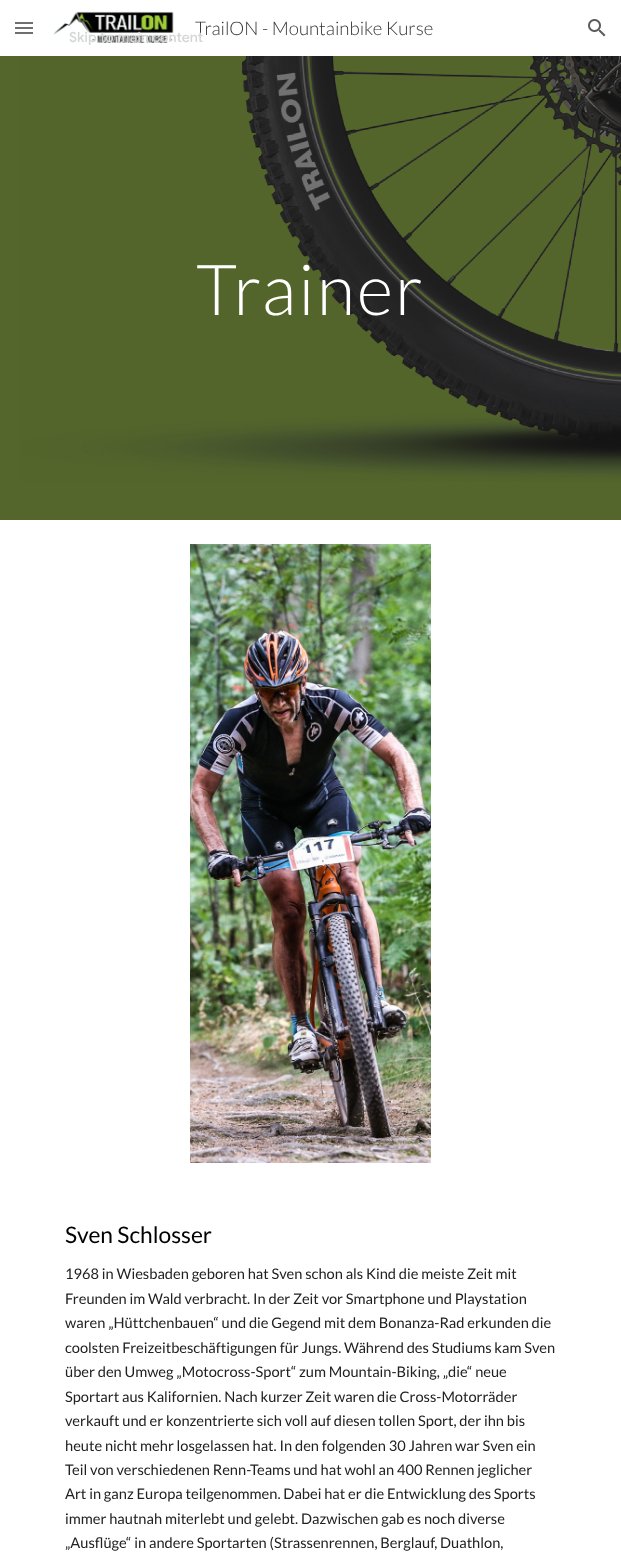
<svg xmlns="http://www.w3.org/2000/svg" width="621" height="1566">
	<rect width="100%" height="100%" fill="#FFFFFF" />
	<rect x="15" y="22" width="18" height="2" fill="#5C5C5C" />
	<rect x="15" y="27" width="18" height="2" fill="#5C5C5C" />
	<rect x="15" y="32" width="18" height="2" fill="#5C5C5C" />
	<rect x="15" y="22" width="18" height="12" fill="#FFFFFF" fill-opacity="0.12" />
	<image x="53" y="11" width="121" height="32" href="assets/img1.png" />
	<text x="195" y="35" font-family="Lato" font-size="18.7" font-weight="300" fill="#333333">TrailON - Mountainbike Kurse</text>
	<image x="588" y="19" width="18" height="18" href="assets/img2.png" />
	<rect x="0" y="56" width="621" height="464" fill="#54662B" />
	<image x="20" y="56" width="601" height="426" href="assets/img3.png" />
	<text x="196" y="315" font-family="Lato" font-size="70.5" font-weight="300" letter-spacing="2" fill="#FFFFFF">Trainer</text>
	<image x="190" y="544" width="241" height="619" href="assets/img4.png" />
	<text x="65" y="1243" font-family="Lato" font-size="22.75" fill="#000000">Sven Schlosser</text>
	<g font-family="Lato" font-size="14.65" fill="#212121">
		<text x="65" y="1279">1968 in Wiesbaden geboren hat Sven schon als Kind die meiste Zeit mit</text>
		<text x="65" y="1304">Freunden im Wald verbracht. In der Zeit vor Smartphone und Playstation</text>
		<text x="65" y="1328">waren „Hüttchenbauen“ und die Gegend mit dem Bonanza-Rad erkunden die</text>
		<text x="65" y="1353">coolsten Freizeitbeschäftigungen für Jungs. Während des Studiums kam Sven</text>
		<text x="65" y="1377">über den Umweg „Motocross-Sport“ zum Mountain-Biking, „die“ neue</text>
		<text x="65" y="1402">Sportart aus Kalifornien. Nach kurzer Zeit waren die Cross-Motorräder</text>
		<text x="65" y="1426">verkauft und er konzentrierte sich voll auf diesen tollen Sport, der ihn bis</text>
		<text x="65" y="1451">heute nicht mehr losgelassen hat. In den folgenden 30 Jahren war Sven ein</text>
		<text x="65" y="1475">Teil von verschiedenen Renn-Teams und hat wohl an 400 Rennen jeglicher</text>
		<text x="65" y="1499">Art in ganz Europa teilgenommen. Dabei hat er die Entwicklung des Sports</text>
		<text x="65" y="1524">immer hautnah miterlebt und gelebt. Dazwischen gab es noch diverse</text>
		<text x="65" y="1548">„Ausflüge“ in andere Sportarten (Strassenrennen, Berglauf, Duathlon,</text>
	</g>
	<text x="69" y="42" font-family="Google Sans" font-size="14" font-weight="500" letter-spacing="0.1" fill="#D5D5D6">Skip to main content</text>
</svg>
